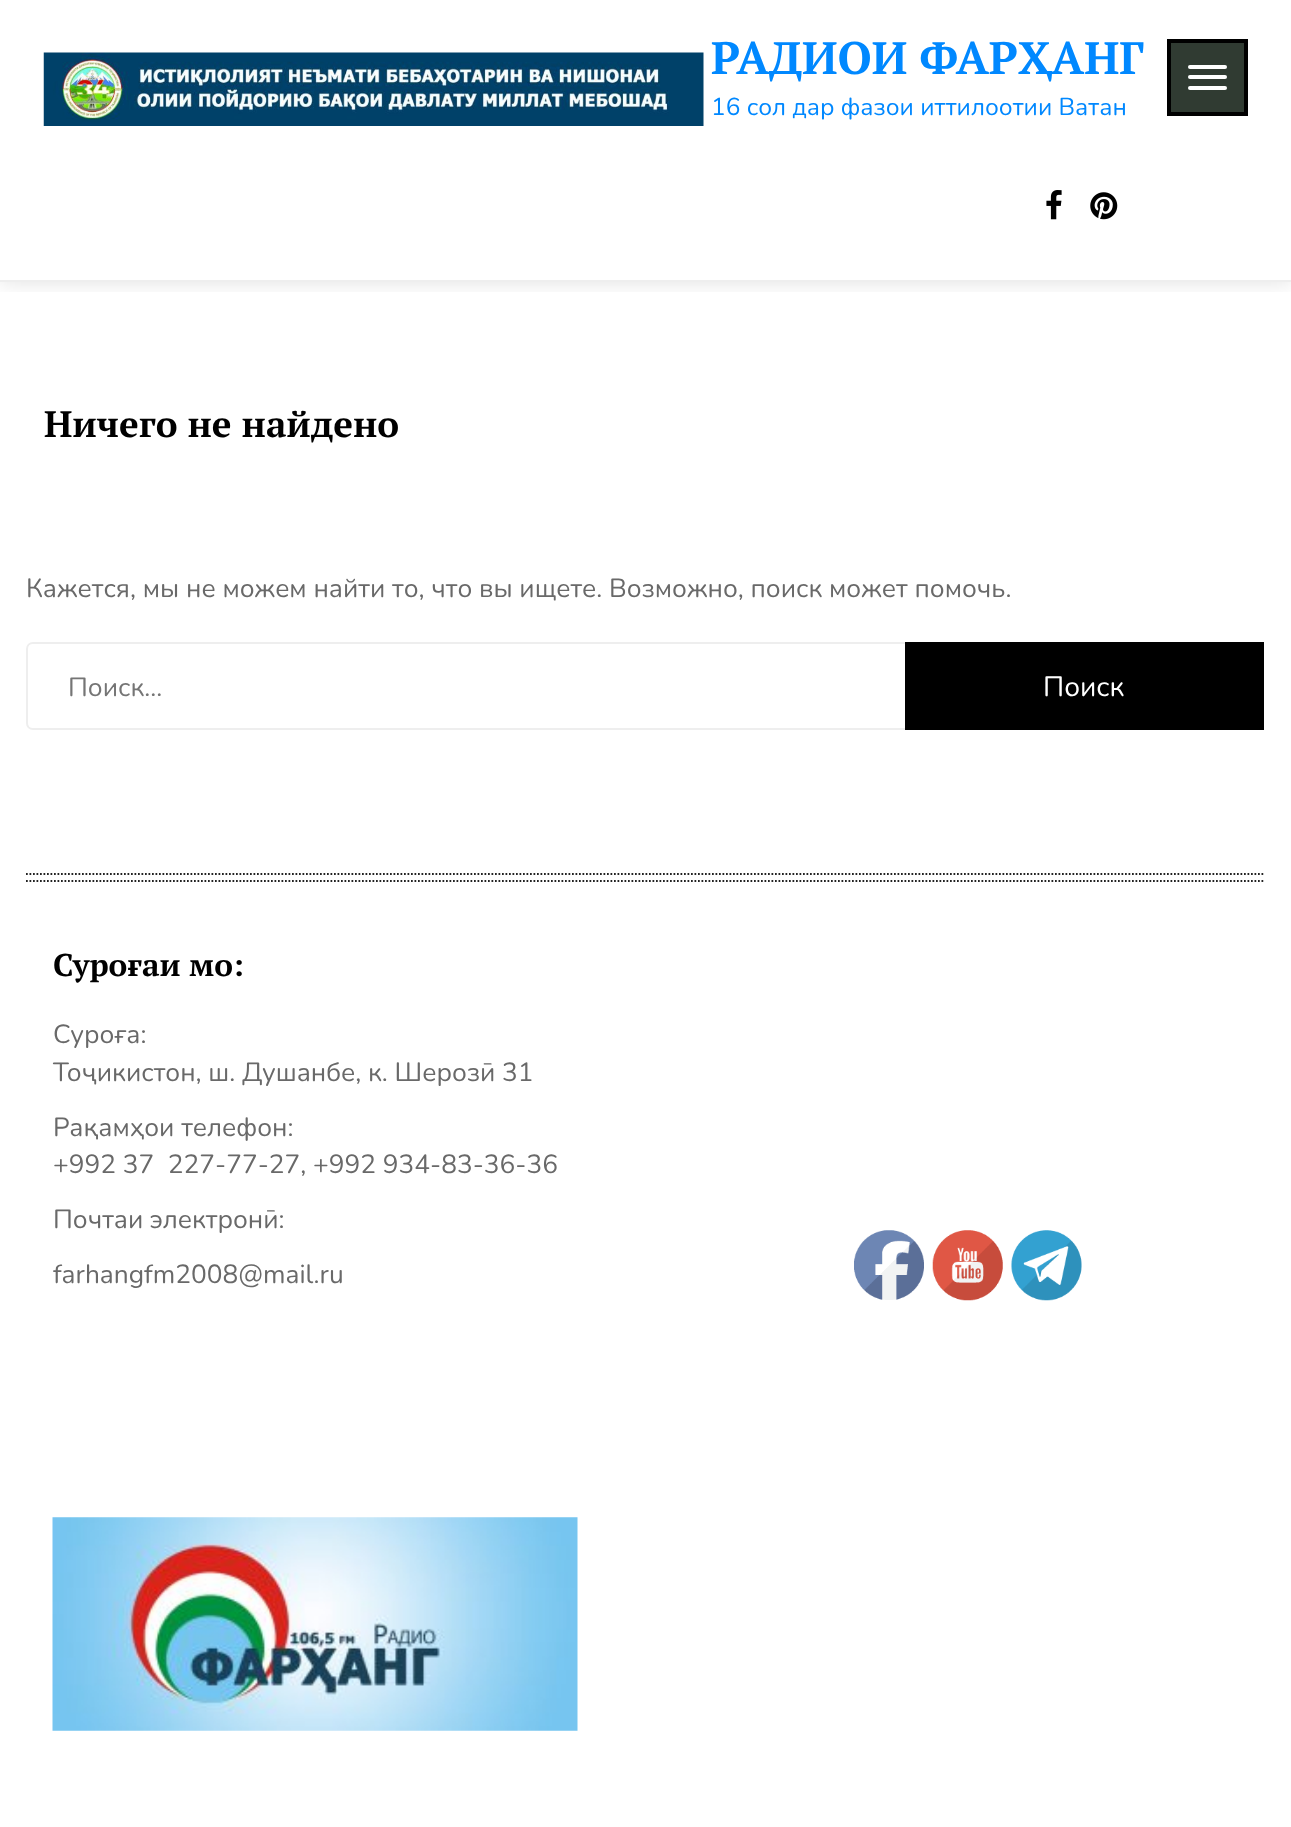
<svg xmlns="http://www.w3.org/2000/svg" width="1291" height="1827">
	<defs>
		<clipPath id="clip1"><rect x="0" y="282" width="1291" height="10" /></clipPath>
	</defs>
	<rect width="100%" height="100%" fill="#FFFFFF" />
	<g clip-path="url(#clip1)">
		<rect x="0" y="0" width="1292" height="282" fill="#000000" fill-opacity="0.12" filter="blur(10.5px)" />
	</g>
	<rect x="0" y="280" width="1291" height="2" fill="#EEEEEE" />
	<image x="43" y="52" width="661" height="74" href="assets/img1.png" />
	<text x="711" y="74" font-family="PT Serif" font-size="45.5" font-weight="700" fill="#0088FF">РАДИОИ ФАРҲАНГ</text>
	<text x="711" y="115" font-family="Nunito" font-size="24.5" fill="#0088FF">16 сол дар фазои иттилоотии Ватан</text>
	<rect x="1169" y="41" width="77" height="73" fill="#303B32" stroke="#000000" stroke-width="4" />
	<rect x="1188" y="65" width="39" height="4" rx="2" fill="#FFFFFF" />
	<rect x="1188" y="75" width="39" height="4" rx="2" fill="#FFFFFF" />
	<rect x="1188" y="86" width="39" height="4" rx="2" fill="#FFFFFF" />
	<image x="1046" y="190" width="16" height="30" href="assets/img2.png" />
	<image x="1090" y="192" width="28" height="28" href="assets/img3.png" />
	<text x="44" y="437" font-family="PT Serif" font-size="36.75" font-weight="700" fill="#000000">Ничего не найдено</text>
	<text x="26" y="597" font-family="Nunito" font-size="26.25" fill="#696969">Кажется, мы не можем найти то, что вы ищете. Возможно, поиск может помочь.</text>
	<path d="M33 643H906V729H33C29.5 729 27 726.5 27 723V649C27 645.5 29.5 643 33 643Z" fill="none" stroke="#EEEEEE" stroke-width="2" />
	<text x="68" y="696" font-family="Nunito" font-size="26.25" fill="#757575">Поиск…</text>
	<rect x="905" y="642" width="359" height="88" fill="#000000" />
	<text x="1043" y="696" font-family="Nunito" font-size="28" fill="#FFFFFF">Поиск</text>
	<path d="M26 874H1265" fill="none" stroke="#222222" stroke-width="1.8" stroke-dasharray="1.75 1.75" />
	<path d="M26 881H1265" fill="none" stroke="#222222" stroke-width="1.8" stroke-dasharray="1.75 1.75" />
	<text x="53" y="976" font-family="PT Serif" font-size="31.5" font-weight="700" fill="#000000">Суроғаи мо:</text>
	<g font-family="Nunito" font-size="26.25" fill="#696969">
		<text x="53" y="1043">Суроға:</text>
		<text x="53" y="1081">Тоҷикистон, ш. Душанбе, к. Шерозӣ 31</text>
		<text x="53" y="1136">Рақамҳои телефон:</text>
		<text x="53" y="1173" xml:space="preserve">+992 37  227-77-27, +992 934-83-36-36</text>
		<text x="53" y="1228">Почтаи электронӣ:</text>
		<text x="53" y="1283">farhangfm2008@mail.ru</text>
	</g>
	<image x="52" y="1517" width="526" height="214" href="assets/img4.png" />
	<image x="854" y="1230" width="70" height="70" href="assets/img5.png" />
	<image x="932" y="1230" width="71" height="71" href="assets/img6.png" />
	<image x="1011" y="1230" width="71" height="71" href="assets/img7.png" />
</svg>
